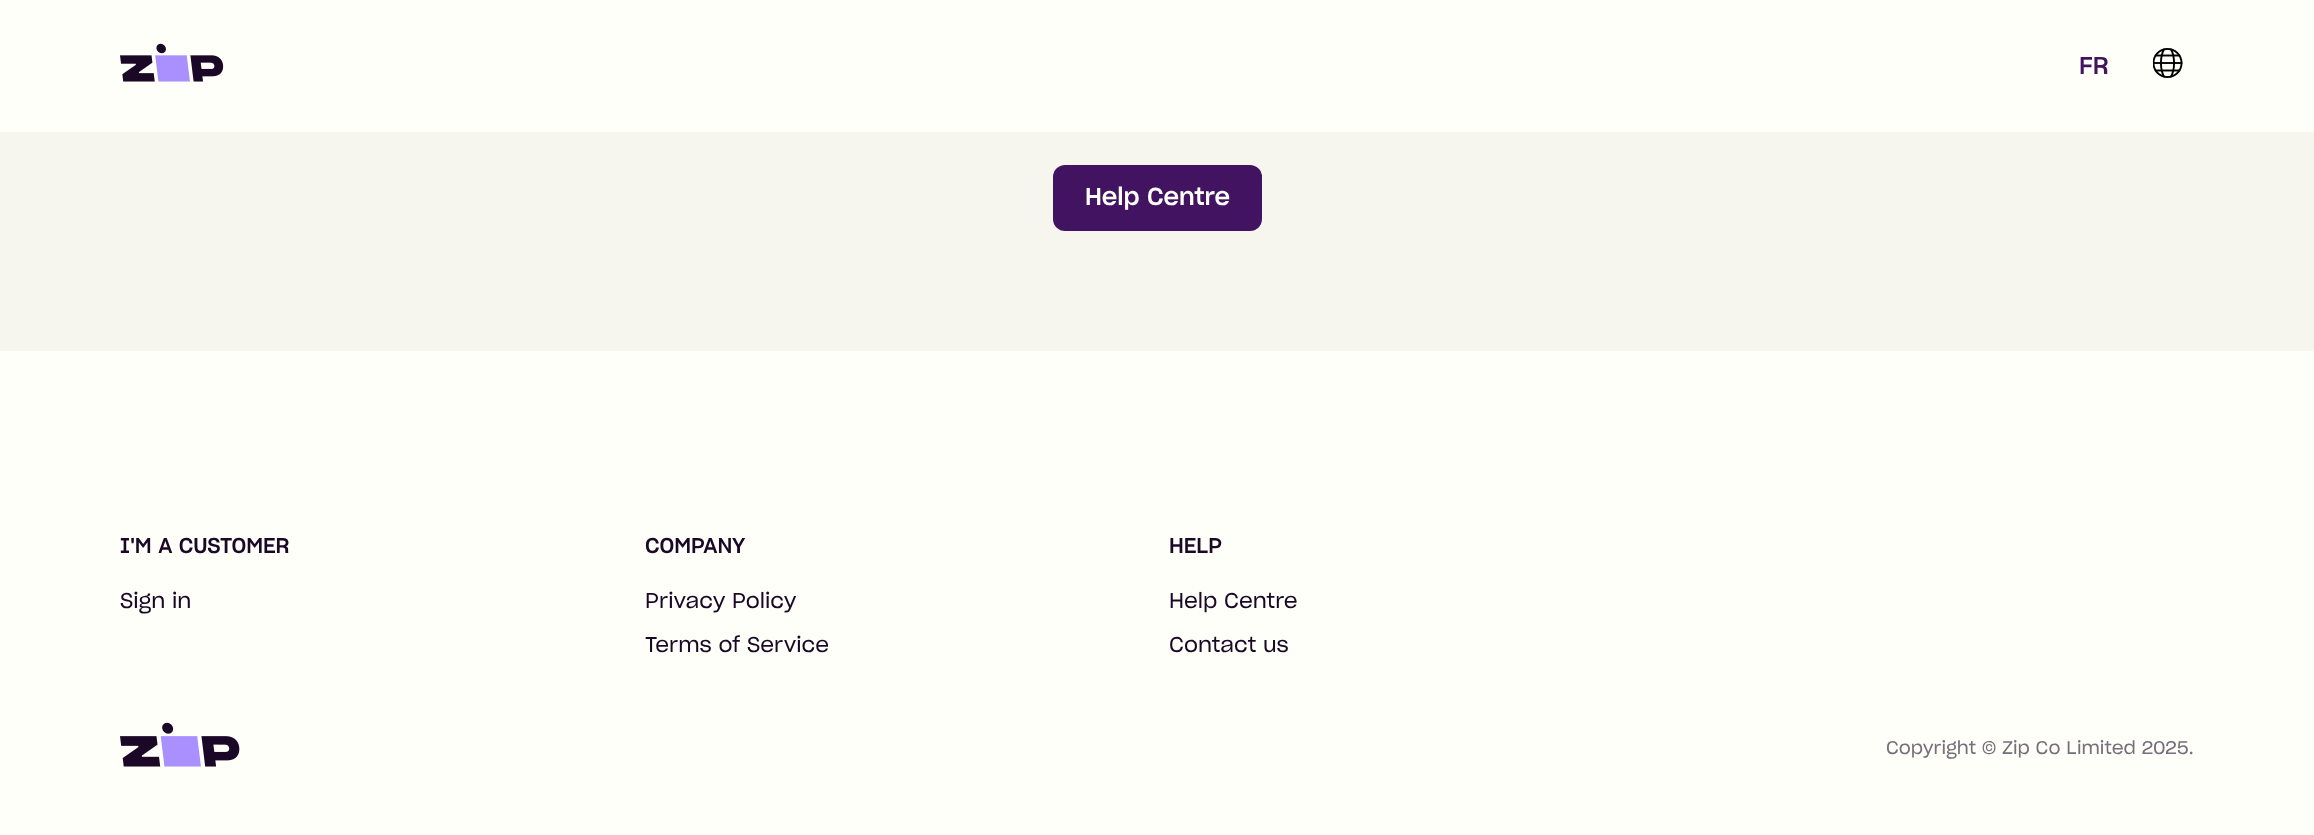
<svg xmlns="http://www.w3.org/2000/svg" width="2314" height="835">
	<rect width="100%" height="100%" fill="#FFFFFA" />
	<image x="120" y="43" width="104" height="39" href="assets/img1.png" />
	<text x="2079" y="74" font-family="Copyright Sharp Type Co" font-size="24" font-weight="500" fill="#411361">FR</text>
	<image x="2153" y="48" width="30" height="30" href="assets/img2.png" />
	<rect x="0" y="132" width="2314" height="219" fill="#F6F6EE" />
	<rect x="1053" y="165" width="209" height="66" rx="12" fill="#411361" />
	<text x="1085" y="205" font-family="Copyright Sharp Type Co" font-size="24" font-weight="500" fill="#FFFFFA">Help Centre</text>
	<text x="120" y="553" font-family="Copyright Sharp Type Co" font-size="21" font-weight="500" fill="#1A0826">I'M A CUSTOMER</text>
	<text x="120" y="608" font-family="Copyright Sharp Type Co" font-size="21" fill="#1A0826">Sign in</text>
	<text x="645" y="553" font-family="Copyright Sharp Type Co" font-size="21" font-weight="500" fill="#1A0826">COMPANY</text>
	<g font-family="Copyright Sharp Type Co" font-size="21" fill="#1A0826">
		<text x="645" y="608">Privacy Policy</text>
		<text x="645" y="652">Terms of Service</text>
	</g>
	<text x="1169" y="553" font-family="Copyright Sharp Type Co" font-size="21" font-weight="500" fill="#1A0826">HELP</text>
	<g font-family="Copyright Sharp Type Co" font-size="21" fill="#1A0826">
		<text x="1169" y="608">Help Centre</text>
		<text x="1169" y="652">Contact us</text>
	</g>
	<image x="120" y="722" width="120" height="45" href="assets/img3.png" />
	<text x="1886" y="754" font-family="Copyright Sharp Type Co" font-size="18" fill="#786E7A">Copyright © Zip Co Limited 2025.</text>
</svg>
